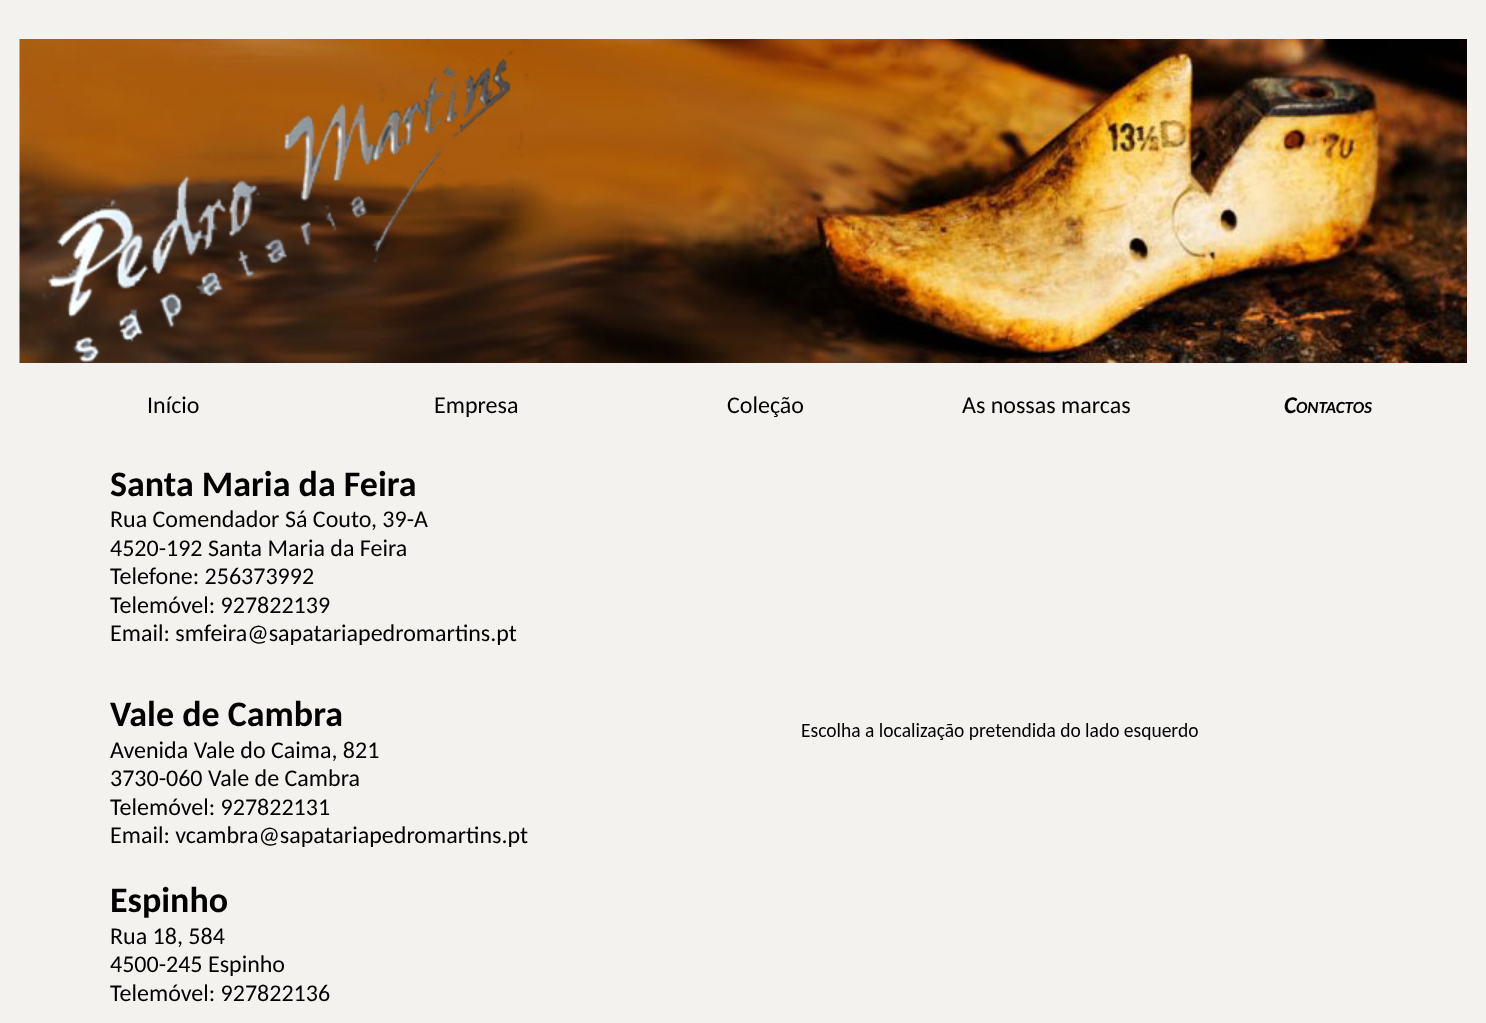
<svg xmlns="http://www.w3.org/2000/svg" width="1486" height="1023">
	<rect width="100%" height="100%" fill="#F4F2EF" />
	<image x="19" y="39" width="1448" height="324" href="assets/img1.png" />
	<g font-family="Carlito" font-size="24" fill="#000000">
		<text x="147" y="413">Início</text>
		<text x="434" y="413">Empresa</text>
		<text x="727" y="413">Coleção</text>
		<text x="962" y="413">As nossas marcas</text>
	</g>
	<text x="1284" y="413" font-family="Carlito" font-size="24" font-weight="700" font-style="italic" fill="#000000">C</text>
	<text x="1296" y="413" font-family="Carlito" font-size="17" font-weight="700" font-style="italic" fill="#000000">ONTACTOS</text>
	<text x="110" y="496" font-family="Carlito" font-size="36" font-weight="700" fill="#000000">Santa Maria da Feira</text>
	<g font-family="Carlito" font-size="24" fill="#000000">
		<text x="110" y="527">Rua Comendador Sá Couto, 39-A</text>
		<text x="110" y="556">4520-192 Santa Maria da Feira</text>
		<text x="110" y="584">Telefone: 256373992</text>
		<text x="110" y="613">Telemóvel: 927822139</text>
		<text x="110" y="641">Email: smfeira@sapatariapedromartins.pt</text>
	</g>
	<image x="802" y="723" width="396" height="17" href="assets/img2.png" />
	<text x="110" y="726" font-family="Carlito" font-size="36" font-weight="700" fill="#000000">Vale de Cambra</text>
	<g font-family="Carlito" font-size="24" fill="#000000">
		<text x="110" y="758">Avenida Vale do Caima, 821</text>
		<text x="110" y="786">3730-060 Vale de Cambra</text>
		<text x="110" y="815">Telemóvel: 927822131</text>
		<text x="110" y="843">Email: vcambra@sapatariapedromartins.pt</text>
	</g>
	<text x="110" y="912" font-family="Carlito" font-size="36" font-weight="700" fill="#000000">Espinho</text>
	<g font-family="Carlito" font-size="24" fill="#000000">
		<text x="110" y="944">Rua 18, 584</text>
		<text x="110" y="972">4500-245 Espinho</text>
		<text x="110" y="1001">Telemóvel: 927822136</text>
	</g>
</svg>
